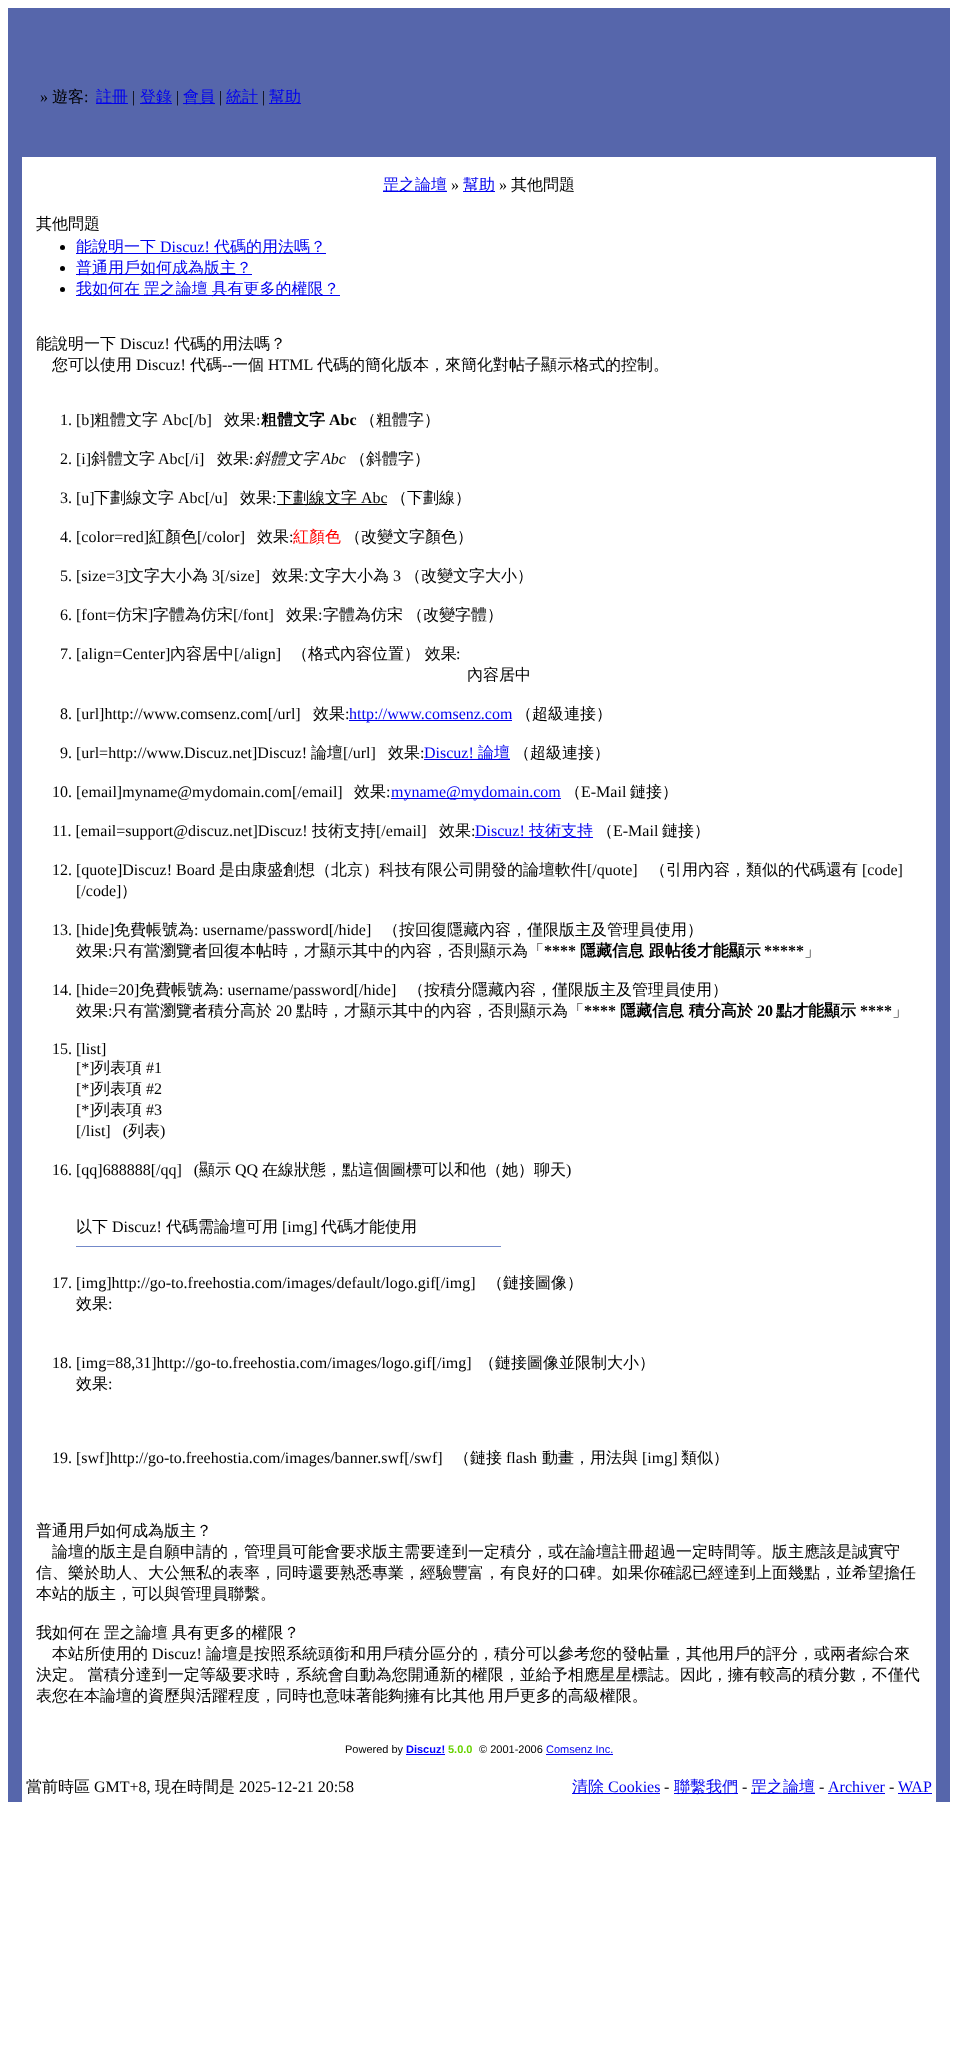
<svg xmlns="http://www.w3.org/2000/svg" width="958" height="2048">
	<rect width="100%" height="100%" fill="#FFFFFF" />
	<rect x="8" y="8" width="942" height="1794" fill="#5666AB" />
	<text x="40" y="102" font-family="Liberation Serif" font-size="16" fill="#000000">»</text>
	<text x="52" y="102" font-family="WenQuanYi Zen Hei" font-size="16" font-weight="500" fill="#000000">遊客</text>
	<text x="84" y="102" font-family="Liberation Serif" font-size="16" fill="#000000">:</text>
	<rect x="96" y="103" width="32" height="1" fill="#0000EE" />
	<text x="96" y="102" font-family="WenQuanYi Zen Hei" font-size="16" font-weight="500" fill="#0000EE">註冊</text>
	<text x="132" y="102" font-family="Liberation Serif" font-size="16" fill="#000000">|</text>
	<rect x="140" y="103" width="32" height="1" fill="#0000EE" />
	<text x="140" y="102" font-family="WenQuanYi Zen Hei" font-size="16" font-weight="500" fill="#0000EE">登錄</text>
	<text x="176" y="102" font-family="Liberation Serif" font-size="16" fill="#000000">|</text>
	<rect x="183" y="103" width="32" height="1" fill="#0000EE" />
	<text x="183" y="102" font-family="WenQuanYi Zen Hei" font-size="16" font-weight="500" fill="#0000EE">會員</text>
	<text x="219" y="102" font-family="Liberation Serif" font-size="16" fill="#000000">|</text>
	<rect x="226" y="103" width="32" height="1" fill="#0000EE" />
	<text x="226" y="102" font-family="WenQuanYi Zen Hei" font-size="16" font-weight="500" fill="#0000EE">統計</text>
	<text x="262" y="102" font-family="Liberation Serif" font-size="16" fill="#000000">|</text>
	<rect x="269" y="103" width="32" height="1" fill="#0000EE" />
	<text x="269" y="102" font-family="WenQuanYi Zen Hei" font-size="16" font-weight="500" fill="#0000EE">幫助</text>
	<rect x="22" y="157" width="914" height="1645" fill="#FFFFFF" />
	<rect x="383" y="191" width="64" height="1" fill="#0000EE" />
	<text x="383" y="190" font-family="WenQuanYi Zen Hei" font-size="16" font-weight="500" fill="#0000EE">罡之論壇</text>
	<text x="451" y="190" font-family="Liberation Serif" font-size="16" fill="#000000">»</text>
	<rect x="463" y="191" width="32" height="1" fill="#0000EE" />
	<text x="463" y="190" font-family="WenQuanYi Zen Hei" font-size="16" font-weight="500" fill="#0000EE">幫助</text>
	<text x="499" y="190" font-family="Liberation Serif" font-size="16" fill="#000000">»</text>
	<g font-family="WenQuanYi Zen Hei" font-size="16" font-weight="500" fill="#000000">
		<text x="511" y="190">其他問題</text>
		<text x="36" y="229">其他問題</text>
	</g>
	<circle cx="62.5" cy="247.5" r="2.5" fill="#000000" />
	<rect x="76" y="253" width="250" height="1" fill="#0000EE" />
	<text x="76" y="252" font-family="WenQuanYi Zen Hei" font-size="16" font-weight="500" fill="#0000EE">能說明一下</text>
	<text x="160" y="252" font-family="Liberation Serif" font-size="16" fill="#0000EE">Discuz!</text>
	<text x="214" y="252" font-family="WenQuanYi Zen Hei" font-size="16" font-weight="500" fill="#0000EE">代碼的用法嗎？</text>
	<circle cx="62.5" cy="268.5" r="2.5" fill="#000000" />
	<rect x="76" y="274" width="176" height="1" fill="#0000EE" />
	<text x="76" y="273" font-family="WenQuanYi Zen Hei" font-size="16" font-weight="500" fill="#0000EE">普通用戶如何成為版主？</text>
	<circle cx="62.5" cy="289.5" r="2.5" fill="#000000" />
	<rect x="76" y="295" width="264" height="1" fill="#0000EE" />
	<text x="76" y="294" word-spacing="-1" font-family="WenQuanYi Zen Hei" font-size="16" font-weight="500" fill="#0000EE">我如何在 罡之論壇 具有更多的權限？</text>
	<text x="36" y="349" font-family="WenQuanYi Zen Hei" font-size="16" font-weight="500" fill="#000000">能說明一下</text>
	<text x="120" y="349" font-family="Liberation Serif" font-size="16" fill="#000000">Discuz!</text>
	<g font-family="WenQuanYi Zen Hei" font-size="16" font-weight="500" fill="#000000">
		<text x="174" y="349">代碼的用法嗎？</text>
		<text x="52" y="370">您可以使用</text>
	</g>
	<text x="136" y="370" font-family="Liberation Serif" font-size="16" fill="#000000">Discuz!</text>
	<text x="190" y="370" font-family="WenQuanYi Zen Hei" font-size="16" font-weight="500" fill="#000000">代碼</text>
	<text x="222" y="370" font-family="Liberation Serif" font-size="16" fill="#000000">--</text>
	<text x="232" y="370" font-family="WenQuanYi Zen Hei" font-size="16" font-weight="500" fill="#000000">一個</text>
	<text x="268" y="370" font-family="Liberation Serif" font-size="16" fill="#000000">HTML</text>
	<text x="317" y="370" font-family="WenQuanYi Zen Hei" font-size="16" font-weight="500" fill="#000000">代碼的簡化版本，來簡化對帖子顯示格式的控制。</text>
	<text x="60" y="425" font-family="Liberation Serif" font-size="16" fill="#000000">1. [b]</text>
	<text x="94" y="425" font-family="WenQuanYi Zen Hei" font-size="16" font-weight="500" fill="#000000">粗體文字</text>
	<text x="162" y="425" font-family="Liberation Serif" font-size="16" fill="#000000">Abc[/b]</text>
	<text x="224" y="425" font-family="WenQuanYi Zen Hei" font-size="16" font-weight="500" fill="#000000">效果</text>
	<text x="256" y="425" font-family="Liberation Serif" font-size="16" fill="#000000">:</text>
	<text x="261" y="425" font-family="WenQuanYi Zen Hei" font-size="16" font-weight="700" fill="#000000">粗體文字</text>
	<text x="329" y="425" font-family="Liberation Serif" font-size="16" font-weight="700" fill="#000000">Abc</text>
	<text x="360" y="425" font-family="WenQuanYi Zen Hei" font-size="16" font-weight="500" fill="#000000">（粗體字）</text>
	<text x="60" y="464" font-family="Liberation Serif" font-size="16" fill="#000000">2. [i]</text>
	<text x="91" y="464" font-family="WenQuanYi Zen Hei" font-size="16" font-weight="500" fill="#000000">斜體文字</text>
	<text x="158" y="464" font-family="Liberation Serif" font-size="16" fill="#000000">Abc[/i]</text>
	<text x="217" y="464" font-family="WenQuanYi Zen Hei" font-size="16" font-weight="500" fill="#000000">效果</text>
	<text x="249" y="464" font-family="Liberation Serif" font-size="16" fill="#000000">:</text>
	<text x="254" y="464" font-family="WenQuanYi Zen Hei" font-size="16" font-weight="500" font-style="italic" fill="#000000">斜體文字</text>
	<text x="321" y="464" font-family="Liberation Serif" font-size="16" font-style="italic" fill="#000000">Abc</text>
	<text x="350" y="464" font-family="WenQuanYi Zen Hei" font-size="16" font-weight="500" fill="#000000">（斜體字）</text>
	<text x="60" y="503" font-family="Liberation Serif" font-size="16" fill="#000000">3. [u]</text>
	<text x="94" y="503" font-family="WenQuanYi Zen Hei" font-size="16" font-weight="500" fill="#000000">下劃線文字</text>
	<text x="178" y="503" font-family="Liberation Serif" font-size="16" fill="#000000">Abc[/u]</text>
	<text x="240" y="503" font-family="WenQuanYi Zen Hei" font-size="16" font-weight="500" fill="#000000">效果</text>
	<text x="272" y="503" font-family="Liberation Serif" font-size="16" fill="#000000">:</text>
	<rect x="277" y="504" width="110" height="1" fill="#000000" />
	<text x="277" y="503" font-family="WenQuanYi Zen Hei" font-size="16" font-weight="500" fill="#000000">下劃線文字</text>
	<text x="361" y="503" font-family="Liberation Serif" font-size="16" fill="#000000">Abc</text>
	<text x="391" y="503" font-family="WenQuanYi Zen Hei" font-size="16" font-weight="500" fill="#000000">（下劃線）</text>
	<text x="60" y="542" font-family="Liberation Serif" font-size="16" fill="#000000">4. [color=red]</text>
	<text x="149" y="542" font-family="WenQuanYi Zen Hei" font-size="16" font-weight="500" fill="#000000">紅顏色</text>
	<text x="197" y="542" font-family="Liberation Serif" font-size="16" fill="#000000">[/color]</text>
	<text x="257" y="542" font-family="WenQuanYi Zen Hei" font-size="16" font-weight="500" fill="#000000">效果</text>
	<text x="289" y="542" font-family="Liberation Serif" font-size="16" fill="#000000">:</text>
	<text x="293" y="542" font-family="WenQuanYi Zen Hei" font-size="16" font-weight="500" fill="#FF0000">紅顏色</text>
	<text x="345" y="542" font-family="WenQuanYi Zen Hei" font-size="16" font-weight="500" fill="#000000">（改變文字顏色）</text>
	<text x="60" y="581" font-family="Liberation Serif" font-size="16" fill="#000000">5. [size=3]</text>
	<text x="128" y="581" font-family="WenQuanYi Zen Hei" font-size="16" font-weight="500" fill="#000000">文字大小為</text>
	<text x="212" y="581" font-family="Liberation Serif" font-size="16" fill="#000000">3[/size]</text>
	<text x="272" y="581" font-family="WenQuanYi Zen Hei" font-size="16" font-weight="500" fill="#000000">效果</text>
	<text x="304" y="581" font-family="Liberation Serif" font-size="16" fill="#000000">:</text>
	<text x="309" y="581" font-family="WenQuanYi Zen Hei" font-size="16" font-weight="500" fill="#000000">文字大小為</text>
	<text x="393" y="581" font-family="Liberation Serif" font-size="16" fill="#000000">3</text>
	<text x="405" y="581" font-family="WenQuanYi Zen Hei" font-size="16" font-weight="500" fill="#000000">（改變文字大小）</text>
	<text x="60" y="620" font-family="Liberation Serif" font-size="16" fill="#000000">6. [font=</text>
	<text x="116" y="620" font-family="WenQuanYi Zen Hei" font-size="16" font-weight="500" fill="#000000">仿宋</text>
	<text x="148" y="620" font-family="Liberation Serif" font-size="16" fill="#000000">]</text>
	<text x="153" y="620" font-family="WenQuanYi Zen Hei" font-size="16" font-weight="500" fill="#000000">字體為仿宋</text>
	<text x="233" y="620" font-family="Liberation Serif" font-size="16" fill="#000000">[/font]</text>
	<text x="286" y="620" font-family="WenQuanYi Zen Hei" font-size="16" font-weight="500" fill="#000000">效果</text>
	<text x="318" y="620" font-family="Liberation Serif" font-size="16" fill="#000000">:</text>
	<g font-family="WenQuanYi Zen Hei" font-size="16" font-weight="500" fill="#000000">
		<text x="323" y="620">字體為仿宋</text>
		<text x="407" y="620">（改變字體）</text>
	</g>
	<text x="60" y="659" font-family="Liberation Serif" font-size="16" fill="#000000">7. [align=Center]</text>
	<text x="170" y="659" font-family="WenQuanYi Zen Hei" font-size="16" font-weight="500" fill="#000000">內容居中</text>
	<text x="234" y="659" font-family="Liberation Serif" font-size="16" fill="#000000">[/align]</text>
	<text x="292" y="659" font-family="WenQuanYi Zen Hei" font-size="16" font-weight="500" fill="#000000">（格式內容位置） 效果</text>
	<text x="456" y="659" font-family="Liberation Serif" font-size="16" fill="#000000">:</text>
	<text x="467" y="680" font-family="WenQuanYi Zen Hei" font-size="16" font-weight="500" fill="#000000">內容居中</text>
	<text x="60" y="719" font-family="Liberation Serif" font-size="16" fill="#000000">8. [url]http://www.comsenz.com[/url]</text>
	<text x="313" y="719" font-family="WenQuanYi Zen Hei" font-size="16" font-weight="500" fill="#000000">效果</text>
	<text x="345" y="719" font-family="Liberation Serif" font-size="16" fill="#000000">:</text>
	<rect x="349" y="720" width="163" height="1" fill="#0000EE" />
	<text x="349" y="719" font-family="Liberation Serif" font-size="16" fill="#0000EE">http://www.comsenz.com</text>
	<text x="516" y="719" font-family="WenQuanYi Zen Hei" font-size="16" font-weight="500" fill="#000000">（超級連接）</text>
	<text x="60" y="758" font-family="Liberation Serif" font-size="16" fill="#000000">9. [url=http://www.Discuz.net]Discuz!</text>
	<text x="311" y="758" font-family="WenQuanYi Zen Hei" font-size="16" font-weight="500" fill="#000000">論壇</text>
	<text x="343" y="758" font-family="Liberation Serif" font-size="16" fill="#000000">[/url]</text>
	<text x="388" y="758" font-family="WenQuanYi Zen Hei" font-size="16" font-weight="500" fill="#000000">效果</text>
	<text x="420" y="758" font-family="Liberation Serif" font-size="16" fill="#000000">:</text>
	<text x="424" y="758" font-family="Liberation Serif" font-size="16" fill="#0000EE">Discuz!</text>
	<rect x="424" y="759" width="86" height="1" fill="#0000EE" />
	<text x="478" y="758" font-family="WenQuanYi Zen Hei" font-size="16" font-weight="500" fill="#0000EE">論壇</text>
	<text x="514" y="758" font-family="WenQuanYi Zen Hei" font-size="16" font-weight="500" fill="#000000">（超級連接）</text>
	<text x="52" y="797" font-family="Liberation Serif" font-size="16" fill="#000000">10. [email]myname@mydomain.com[/email]</text>
	<text x="354" y="797" font-family="WenQuanYi Zen Hei" font-size="16" font-weight="500" fill="#000000">效果</text>
	<text x="386" y="797" font-family="Liberation Serif" font-size="16" fill="#000000">:</text>
	<rect x="391" y="798" width="170" height="1" fill="#0000EE" />
	<text x="391" y="797" font-family="Liberation Serif" font-size="16" fill="#0000EE">myname@mydomain.com</text>
	<text x="565" y="797" font-family="WenQuanYi Zen Hei" font-size="16" font-weight="500" fill="#000000">（</text>
	<text x="581" y="797" font-family="Liberation Serif" font-size="16" fill="#000000">E-Mail</text>
	<text x="630" y="797" font-family="WenQuanYi Zen Hei" font-size="16" font-weight="500" fill="#000000">鏈接）</text>
	<text x="52" y="836" font-family="Liberation Serif" font-size="16" fill="#000000">11. [email=support@discuz.net]Discuz!</text>
	<text x="312" y="836" font-family="WenQuanYi Zen Hei" font-size="16" font-weight="500" fill="#000000">技術支持</text>
	<text x="376" y="836" font-family="Liberation Serif" font-size="16" fill="#000000">[/email]</text>
	<text x="439" y="836" font-family="WenQuanYi Zen Hei" font-size="16" font-weight="500" fill="#000000">效果</text>
	<text x="471" y="836" font-family="Liberation Serif" font-size="16" fill="#000000">:</text>
	<text x="475" y="836" font-family="Liberation Serif" font-size="16" fill="#0000EE">Discuz!</text>
	<rect x="475" y="837" width="118" height="1" fill="#0000EE" />
	<text x="529" y="836" font-family="WenQuanYi Zen Hei" font-size="16" font-weight="500" fill="#0000EE">技術支持</text>
	<text x="597" y="836" font-family="WenQuanYi Zen Hei" font-size="16" font-weight="500" fill="#000000">（</text>
	<text x="613" y="836" font-family="Liberation Serif" font-size="16" fill="#000000">E-Mail</text>
	<text x="662" y="836" font-family="WenQuanYi Zen Hei" font-size="16" font-weight="500" fill="#000000">鏈接）</text>
	<text x="52" y="875" font-family="Liberation Serif" font-size="16" fill="#000000">12. [quote]Discuz! Board</text>
	<text x="219" y="875" font-family="WenQuanYi Zen Hei" font-size="16" font-weight="500" fill="#000000">是由康盛創想（北京）科技有限公司開發的論壇軟件</text>
	<text x="587" y="875" font-family="Liberation Serif" font-size="16" fill="#000000">[/quote]</text>
	<text x="650" y="875" font-family="WenQuanYi Zen Hei" font-size="16" font-weight="500" fill="#000000">（引用內容，類似的代碼還有</text>
	<g font-family="Liberation Serif" font-size="16" fill="#000000">
		<text x="862" y="875">[code]</text>
		<text x="76" y="896">[/code]</text>
	</g>
	<text x="121" y="896" font-family="WenQuanYi Zen Hei" font-size="16" font-weight="500" fill="#000000">）</text>
	<text x="52" y="935" font-family="Liberation Serif" font-size="16" fill="#000000">13. [hide]</text>
	<text x="114" y="935" font-family="WenQuanYi Zen Hei" font-size="16" font-weight="500" fill="#000000">免費帳號為</text>
	<text x="194" y="935" font-family="Liberation Serif" font-size="16" fill="#000000">: username/password[/hide]</text>
	<g font-family="WenQuanYi Zen Hei" font-size="16" font-weight="500" fill="#000000">
		<text x="383" y="935">（按回復隱藏內容，僅限版主及管理員使用）</text>
		<text x="76" y="956">效果</text>
	</g>
	<text x="108" y="956" font-family="Liberation Serif" font-size="16" fill="#000000">:</text>
	<text x="112" y="956" font-family="WenQuanYi Zen Hei" font-size="16" font-weight="500" fill="#000000">只有當瀏覽者回復本帖時，才顯示其中的內容，否則顯示為「</text>
	<text x="544" y="956" font-family="Liberation Serif" font-size="16" font-weight="700" fill="#000000">****</text>
	<text x="580" y="956" font-family="WenQuanYi Zen Hei" font-size="16" font-weight="700" fill="#000000">隱藏信息 跟帖後才能顯示</text>
	<text x="764" y="956" font-family="Liberation Serif" font-size="16" font-weight="700" fill="#000000">*****</text>
	<text x="804" y="956" font-family="WenQuanYi Zen Hei" font-size="16" font-weight="500" fill="#000000">」</text>
	<text x="52" y="995" font-family="Liberation Serif" font-size="16" fill="#000000">14. [hide=20]</text>
	<text x="139" y="995" font-family="WenQuanYi Zen Hei" font-size="16" font-weight="500" fill="#000000">免費帳號為</text>
	<text x="219" y="995" font-family="Liberation Serif" font-size="16" fill="#000000">: username/password[/hide]</text>
	<g font-family="WenQuanYi Zen Hei" font-size="16" font-weight="500" fill="#000000">
		<text x="408" y="995">（按積分隱藏內容，僅限版主及管理員使用）</text>
		<text x="76" y="1016">效果</text>
	</g>
	<text x="108" y="1016" font-family="Liberation Serif" font-size="16" fill="#000000">:</text>
	<text x="112" y="1016" font-family="WenQuanYi Zen Hei" font-size="16" font-weight="500" fill="#000000">只有當瀏覽者積分高於</text>
	<text x="276" y="1016" font-family="Liberation Serif" font-size="16" fill="#000000">20</text>
	<text x="296" y="1016" font-family="WenQuanYi Zen Hei" font-size="16" font-weight="500" fill="#000000">點時，才顯示其中的內容，否則顯示為「</text>
	<text x="584" y="1016" font-family="Liberation Serif" font-size="16" font-weight="700" fill="#000000">****</text>
	<text x="620" y="1016" font-family="WenQuanYi Zen Hei" font-size="16" font-weight="700" fill="#000000">隱藏信息 積分高於</text>
	<text x="757" y="1016" font-family="Liberation Serif" font-size="16" font-weight="700" fill="#000000">20</text>
	<text x="776" y="1016" font-family="WenQuanYi Zen Hei" font-size="16" font-weight="700" fill="#000000">點才能顯示</text>
	<text x="860" y="1016" font-family="Liberation Serif" font-size="16" font-weight="700" fill="#000000">****</text>
	<text x="892" y="1016" font-family="WenQuanYi Zen Hei" font-size="16" font-weight="500" fill="#000000">」</text>
	<g font-family="Liberation Serif" font-size="16" fill="#000000">
		<text x="52" y="1054">15. [list]</text>
		<text x="76" y="1073">[*]</text>
	</g>
	<text x="94" y="1073" font-family="WenQuanYi Zen Hei" font-size="16" font-weight="500" fill="#000000">列表項</text>
	<g font-family="Liberation Serif" font-size="16" fill="#000000">
		<text x="146" y="1073">#1</text>
		<text x="76" y="1094">[*]</text>
	</g>
	<text x="94" y="1094" font-family="WenQuanYi Zen Hei" font-size="16" font-weight="500" fill="#000000">列表項</text>
	<g font-family="Liberation Serif" font-size="16" fill="#000000">
		<text x="146" y="1094">#2</text>
		<text x="76" y="1115">[*]</text>
	</g>
	<text x="94" y="1115" font-family="WenQuanYi Zen Hei" font-size="16" font-weight="500" fill="#000000">列表項</text>
	<g font-family="Liberation Serif" font-size="16" fill="#000000">
		<text x="146" y="1115">#3</text>
		<text x="76" y="1136" xml:space="preserve">[/list]   (</text>
	</g>
	<text x="128" y="1136" font-family="WenQuanYi Zen Hei" font-size="16" font-weight="500" fill="#000000">列表</text>
	<g font-family="Liberation Serif" font-size="16" fill="#000000">
		<text x="160" y="1136">)</text>
		<text x="52" y="1175" xml:space="preserve">16. [qq]688888[/qq]   (</text>
	</g>
	<text x="199" y="1175" font-family="WenQuanYi Zen Hei" font-size="16" font-weight="500" fill="#000000">顯示</text>
	<text x="235" y="1175" font-family="Liberation Serif" font-size="16" fill="#000000">QQ</text>
	<text x="262" y="1175" font-family="WenQuanYi Zen Hei" font-size="16" font-weight="500" fill="#000000">在線狀態，點這個圖標可以和他（她）聊天</text>
	<text x="566" y="1175" font-family="Liberation Serif" font-size="16" fill="#000000">)</text>
	<text x="76" y="1232" font-family="WenQuanYi Zen Hei" font-size="16" font-weight="500" fill="#000000">以下</text>
	<text x="112" y="1232" font-family="Liberation Serif" font-size="16" fill="#000000">Discuz!</text>
	<text x="166" y="1232" font-family="WenQuanYi Zen Hei" font-size="16" font-weight="500" fill="#000000">代碼需論壇可用</text>
	<text x="282" y="1232" font-family="Liberation Serif" font-size="16" fill="#000000">[img]</text>
	<text x="321" y="1232" font-family="WenQuanYi Zen Hei" font-size="16" font-weight="500" fill="#000000">代碼才能使用</text>
	<rect x="76" y="1246" width="425" height="1" fill="#7389C9" />
	<text x="52" y="1288" font-family="Liberation Serif" font-size="16" fill="#000000">17. [img]http://go-to.freehostia.com/images/default/logo.gif[/img]</text>
	<g font-family="WenQuanYi Zen Hei" font-size="16" font-weight="500" fill="#000000">
		<text x="487" y="1288">（鏈接圖像）</text>
		<text x="76" y="1309">效果</text>
	</g>
	<g font-family="Liberation Serif" font-size="16" fill="#000000">
		<text x="108" y="1309">:</text>
		<text x="52" y="1368">18. [img=88,31]http://go-to.freehostia.com/images/logo.gif[/img]</text>
	</g>
	<g font-family="WenQuanYi Zen Hei" font-size="16" font-weight="500" fill="#000000">
		<text x="479" y="1368">（鏈接圖像並限制大小）</text>
		<text x="76" y="1389">效果</text>
	</g>
	<g font-family="Liberation Serif" font-size="16" fill="#000000">
		<text x="108" y="1389">:</text>
		<text x="52" y="1463">19. [swf]http://go-to.freehostia.com/images/banner.swf[/swf]</text>
	</g>
	<text x="454" y="1463" font-family="WenQuanYi Zen Hei" font-size="16" font-weight="500" fill="#000000">（鏈接</text>
	<text x="506" y="1463" font-family="Liberation Serif" font-size="16" fill="#000000">flash</text>
	<text x="542" y="1463" font-family="WenQuanYi Zen Hei" font-size="16" font-weight="500" fill="#000000">動畫，用法與</text>
	<text x="642" y="1463" font-family="Liberation Serif" font-size="16" fill="#000000">[img]</text>
	<g font-family="WenQuanYi Zen Hei" font-size="16" font-weight="500" fill="#000000">
		<text x="681" y="1463">類似）</text>
		<text x="36" y="1536">普通用戶如何成為版主？</text>
		<text x="52" y="1557">論壇的版主是自願申請的，管理員可能會要求版主需要達到一定積分，或在論壇註冊超過一定時間等。版主應該是誠實守</text>
		<text x="36" y="1578">信、樂於助人、大公無私的表率，同時還要熟悉專業，經驗豐富，有良好的口碑。如果你確認已經達到上面幾點，並希望擔任</text>
		<text x="36" y="1599">本站的版主，可以與管理員聯繫。</text>
		<text x="36" y="1638" word-spacing="-1">我如何在 罡之論壇 具有更多的權限？</text>
		<text x="52" y="1659">本站所使用的</text>
	</g>
	<text x="152" y="1659" font-family="Liberation Serif" font-size="16" fill="#000000">Discuz!</text>
	<g font-family="WenQuanYi Zen Hei" font-size="16" font-weight="500" fill="#000000">
		<text x="206" y="1659">論壇是按照系統頭銜和用戶積分區分的，積分可以參考您的發帖量，其他用戶的評分，或兩者綜合來</text>
		<text x="36" y="1680" word-spacing="-1">決定。 當積分達到一定等級要求時，系統會自動為您開通新的權限，並給予相應星星標誌。因此，擁有較高的積分數，不僅代</text>
		<text x="36" y="1701" word-spacing="-1">表您在本論壇的資歷與活躍程度，同時也意味著能夠擁有比其他 用戶更多的高級權限。</text>
	</g>
	<text x="345" y="1753" font-family="Liberation Sans" font-size="11" fill="#000000">Powered by</text>
	<text x="406" y="1753" font-family="Liberation Sans" font-size="11" font-weight="700" fill="#0000FF">Discuz!</text>
	<rect x="406" y="1754" width="39" height="1" fill="#0000FF" />
	<text x="448" y="1753" font-family="Liberation Sans" font-size="11" font-weight="700" fill="#68D300">5.0.0</text>
	<text x="479" y="1753" font-family="Liberation Sans" font-size="11" fill="#000000">© 2001-2006</text>
	<text x="546" y="1753" font-family="Liberation Sans" font-size="11" fill="#0000EE">Comsenz Inc.</text>
	<rect x="546" y="1754" width="67" height="1" fill="#0000EE" />
	<text x="26" y="1792" font-family="WenQuanYi Zen Hei" font-size="16" font-weight="500" fill="#000000">當前時區</text>
	<text x="94" y="1792" font-family="Liberation Serif" font-size="16" fill="#000000">GMT+8,</text>
	<text x="155" y="1792" font-family="WenQuanYi Zen Hei" font-size="16" font-weight="500" fill="#000000">現在時間是</text>
	<text x="239" y="1792" font-family="Liberation Serif" font-size="16" fill="#000000">2025-12-21 20:58</text>
	<rect x="572" y="1793" width="88" height="1" fill="#0000EE" />
	<text x="572" y="1792" font-family="WenQuanYi Zen Hei" font-size="16" font-weight="500" fill="#0000EE">清除</text>
	<text x="608" y="1792" font-family="Liberation Serif" font-size="16" fill="#0000EE">Cookies</text>
	<text x="664" y="1792" font-family="Liberation Serif" font-size="16" fill="#000000">-</text>
	<rect x="674" y="1793" width="64" height="1" fill="#0000EE" />
	<text x="674" y="1792" font-family="WenQuanYi Zen Hei" font-size="16" font-weight="500" fill="#0000EE">聯繫我們</text>
	<text x="742" y="1792" font-family="Liberation Serif" font-size="16" fill="#000000">-</text>
	<rect x="751" y="1793" width="64" height="1" fill="#0000EE" />
	<text x="751" y="1792" font-family="WenQuanYi Zen Hei" font-size="16" font-weight="500" fill="#0000EE">罡之論壇</text>
	<text x="819" y="1792" font-family="Liberation Serif" font-size="16" fill="#000000">-</text>
	<text x="828" y="1792" font-family="Liberation Serif" font-size="16" fill="#0000EE">Archiver</text>
	<rect x="828" y="1793" width="57" height="1" fill="#0000EE" />
	<text x="889" y="1792" font-family="Liberation Serif" font-size="16" fill="#000000">-</text>
	<text x="898" y="1792" font-family="Liberation Serif" font-size="16" fill="#0000EE">WAP</text>
	<rect x="898" y="1793" width="34" height="1" fill="#0000EE" />
</svg>
